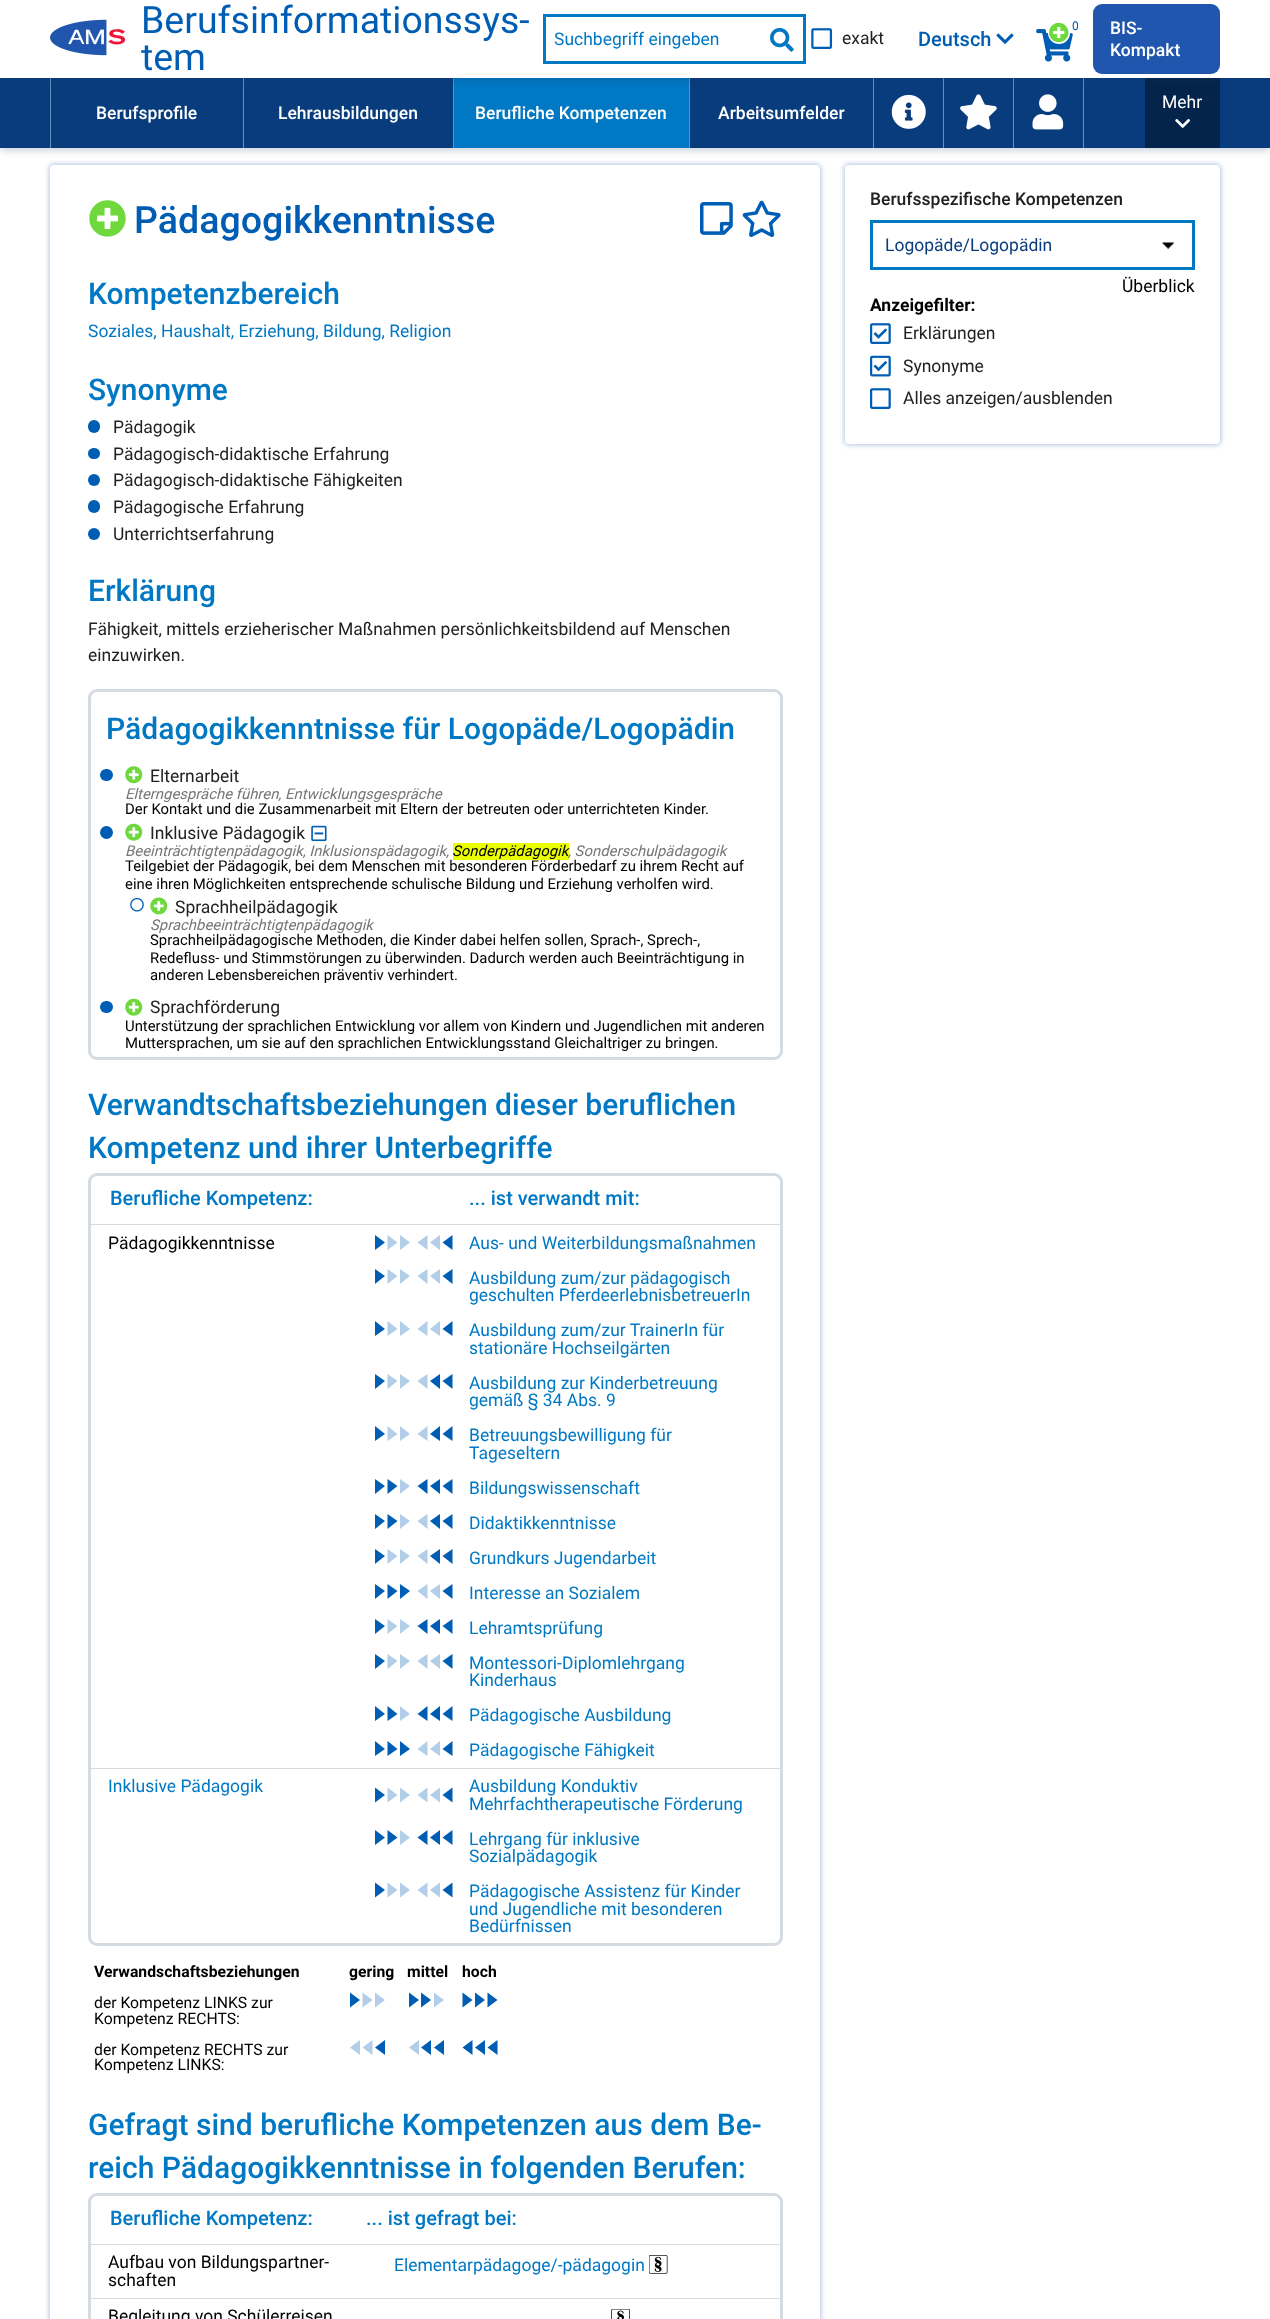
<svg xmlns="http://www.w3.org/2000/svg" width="1270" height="2319">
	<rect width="100%" height="100%" fill="#FFFFFF" />
	<rect x="49" y="164" width="772" height="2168" rx="5" fill="#2357AA" fill-opacity="0.35" filter="blur(2.5px)" />
	<rect x="844" y="164" width="377" height="281" rx="5" fill="#2357AA" fill-opacity="0.35" filter="blur(2.5px)" />
	<rect x="57" y="159" width="1156" height="1" fill="#FFFFFF" />
	<rect x="0" y="80" width="1270" height="70" fill="#0D3365" fill-opacity="0.25" filter="blur(4px)" />
	<rect x="0" y="78" width="1270" height="70" fill="#093C7D" />
	<rect x="1145" y="78" width="75" height="70" fill="#05244B" />
	<rect x="50" y="78" width="1" height="70" fill="#5F94C1" />
	<rect x="243" y="78" width="1" height="70" fill="#5F94C1" />
	<rect x="454" y="78" width="235" height="70" fill="#0078C4" />
	<rect x="453" y="78" width="1" height="70" fill="#5F94C1" />
	<rect x="689" y="78" width="1" height="70" fill="#5F94C1" />
	<rect x="873" y="78" width="1" height="70" fill="#5F94C1" />
	<rect x="943" y="78" width="1" height="70" fill="#5F94C1" />
	<rect x="1083" y="78" width="1" height="70" fill="#5F94C1" />
	<rect x="1013" y="78" width="1" height="70" fill="#5F94C1" />
	<rect x="0" y="3" width="1270" height="77" fill="#0D3365" fill-opacity="0.25" filter="blur(4px)" />
	<rect x="0" y="0" width="1270" height="78" fill="#FFFFFF" />
	<image x="50" y="19" width="76" height="37" href="assets/img1.png" />
	<g font-family="Roboto" font-size="37.5" fill="#005DB4">
		<text x="141" y="33">Berufsinformationssys-</text>
		<text x="141" y="70">tem</text>
	</g>
	<rect x="543" y="14" width="262" height="3" fill="#0078C4" />
	<rect x="803" y="14" width="3" height="50" fill="#0078C4" />
	<rect x="543" y="61" width="262" height="3" fill="#0078C4" />
	<image x="770" y="28" width="24" height="24" href="assets/img2.png" />
	<rect x="543" y="14" width="3" height="50" fill="#0078C4" />
	<text x="554" y="45" font-family="Roboto" font-size="17.5" fill="#0078C4">Suchbegriff eingeben</text>
	<image x="811" y="28" width="22" height="21" href="assets/img3.png" />
	<text x="842" y="44" font-family="Roboto" font-size="17.5" fill="#212121">exakt</text>
	<text x="918" y="46" font-family="Roboto" font-size="20" font-weight="500" fill="#005DB4">Deutsch</text>
	<image x="996" y="33" width="18" height="11" href="assets/img4.png" />
	<image x="1036" y="29" width="37" height="33" href="assets/img6.png" />
	<rect x="1048" y="21" width="22" height="23" rx="11" fill="#FFFFFF" />
	<image x="1049" y="22" width="20" height="21" href="assets/img5.png" />
	<text x="1072" y="30" font-family="Roboto" font-size="12" fill="#005DB4">0</text>
	<rect x="1093" y="4" width="127" height="70" rx="9" fill="#2056AE" />
	<g font-family="Roboto" font-size="17.5" font-weight="500" fill="#FFFFFF">
		<text x="1110" y="34">BIS-</text>
		<text x="1110" y="56">Kompakt</text>
	</g>
	<text x="1162" y="108" font-family="Roboto" font-size="17.5" fill="#FFFFFF">Mehr</text>
	<image x="1175" y="119" width="16" height="9" href="assets/img7.png" />
	<g font-family="Roboto" font-size="17.5" font-weight="500" fill="#FFFFFF">
		<text x="96" y="119">Berufsprofile</text>
		<text x="278" y="119">Lehrausbildungen</text>
		<text x="475" y="119">Berufliche Kompetenzen</text>
		<text x="718" y="119">Arbeitsumfelder</text>
	</g>
	<image x="891" y="94" width="35" height="35" href="assets/img8.png" />
	<image x="960" y="94" width="37" height="36" href="assets/img9.png" />
	<image x="1032" y="94" width="32" height="36" href="assets/img10.png" />
	<rect x="50" y="165" width="770" height="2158" rx="4" fill="#FFFFFF" />
	<image x="89" y="200" width="37" height="37" href="assets/img11.png" />
	<text x="134" y="233" font-family="Roboto" font-size="37.5" font-weight="500" fill="#005DB4">Pädagogikkenntnisse</text>
	<image x="700" y="202" width="33" height="33" href="assets/img12.png" />
	<image x="742" y="200" width="39" height="38" href="assets/img13.png" />
	<text x="88" y="304" font-family="Roboto" font-size="30" font-weight="500" fill="#0078C4">Kompetenzbereich</text>
	<text x="88" y="337" font-family="Roboto" font-size="17.5" fill="#0078C4">Soziales, Haushalt, Erziehung, Bildung, Religion</text>
	<text x="88" y="400" font-family="Roboto" font-size="30" font-weight="500" fill="#0078C4">Synonyme</text>
	<rect x="88" y="420" width="12" height="13" rx="6" fill="#005DB4" />
	<text x="113" y="433" font-family="Roboto" font-size="17.5" fill="#212121">Pädagogik</text>
	<rect x="88" y="448" width="12" height="11" rx="5.5" fill="#005DB4" />
	<text x="113" y="460" font-family="Roboto" font-size="17.5" fill="#212121">Pädagogisch-didaktische Erfahrung</text>
	<circle cx="94" cy="480" r="6" fill="#005DB4" />
	<text x="113" y="486" font-family="Roboto" font-size="17.5" fill="#212121">Pädagogisch-didaktische Fähigkeiten</text>
	<rect x="88" y="500" width="12" height="13" rx="6" fill="#005DB4" />
	<text x="113" y="513" font-family="Roboto" font-size="17.5" fill="#212121">Pädagogische Erfahrung</text>
	<circle cx="94" cy="534" r="6" fill="#005DB4" />
	<text x="113" y="540" font-family="Roboto" font-size="17.5" fill="#212121">Unterrichtserfahrung</text>
	<text x="88" y="601" font-family="Roboto" font-size="30" font-weight="500" fill="#0078C4">Erklärung</text>
	<g font-family="Roboto" font-size="17.5" fill="#212121">
		<text x="88" y="635">Fähigkeit, mittels erzieherischer Maßnahmen persönlichkeitsbildend auf Menschen</text>
		<text x="88" y="661">einzuwirken.</text>
	</g>
	<rect x="89.5" y="690.5" width="692" height="368" rx="7.5" fill="none" stroke="#D4DBE3" stroke-width="3" />
	<text x="106" y="739" font-family="Roboto" font-size="30" font-weight="500" fill="#0078C4">Pädagogikkenntnisse für Logopäde/Logopädin</text>
	<rect x="100" y="769" width="13" height="12" rx="6" fill="#005DB4" />
	<image x="125" y="766" width="18" height="18" href="assets/img14.png" />
	<text x="150" y="782" font-family="Roboto" font-size="17.5" fill="#212121">Elternarbeit</text>
	<text x="125" y="799" font-family="Roboto" font-size="14.9" font-style="italic" fill="#767676">Elterngespräche führen, Entwicklungsgespräche</text>
	<text x="125" y="814" font-family="Roboto" font-size="14.9" fill="#000000">Der Kontakt und die Zusammenarbeit mit Eltern der betreuten oder unterrichteten Kinder.</text>
	<circle cx="106.5" cy="832.5" r="6.5" fill="#005DB4" />
	<image x="125" y="823" width="18" height="18" href="assets/img15.png" />
	<text x="150" y="839" font-family="Roboto" font-size="17.5" fill="#212121">Inklusive Pädagogik</text>
	<image x="311" y="825" width="16" height="17" href="assets/img16.png" />
	<text x="125" y="856" font-family="Roboto" font-size="14.9" font-style="italic" fill="#767676">Beeinträchtigtenpädagogik, Inklusionspädagogik,</text>
	<rect x="453" y="843" width="116" height="17" fill="#EAFF00" />
	<text x="452" y="856" font-family="Roboto" font-size="14.9" font-style="italic" fill="#000000">Sonderpädagogik</text>
	<text x="568" y="856" font-family="Roboto" font-size="14.9" font-style="italic" fill="#767676">, Sonderschulpädagogik</text>
	<g font-family="Roboto" font-size="14.9" fill="#000000">
		<text x="125" y="871">Teilgebiet der Pädagogik, bei dem Menschen mit besonderen Förderbedarf zu ihrem Recht auf</text>
		<text x="125" y="889">eine ihren Möglichkeiten entsprechende schulische Bildung und Erziehung verholfen wird.</text>
	</g>
	<image x="130" y="898" width="14" height="14" href="assets/img17.png" />
	<image x="150" y="897" width="18" height="18" href="assets/img18.png" />
	<text x="175" y="913" font-family="Roboto" font-size="17.5" fill="#212121">Sprachheilpädagogik</text>
	<text x="150" y="930" font-family="Roboto" font-size="14.9" font-style="italic" fill="#767676">Sprachbeeinträchtigtenpädagogik</text>
	<g font-family="Roboto" font-size="14.9" fill="#000000">
		<text x="150" y="945">Sprachheilpädagogische Methoden, die Kinder dabei helfen sollen, Sprach-, Sprech-,</text>
		<text x="150" y="963">Redefluss- und Stimmstörungen zu überwinden. Dadurch werden auch Beeinträchtigung in</text>
		<text x="150" y="980">anderen Lebensbereichen präventiv verhindert.</text>
	</g>
	<rect x="100" y="1001" width="13" height="12" rx="6" fill="#005DB4" />
	<image x="125" y="998" width="18" height="18" href="assets/img15.png" />
	<text x="150" y="1013" font-family="Roboto" font-size="17.5" fill="#212121">Sprachförderung</text>
	<g font-family="Roboto" font-size="14.9" fill="#000000">
		<text x="125" y="1031">Unterstützung der sprachlichen Entwicklung vor allem von Kindern und Jugendlichen mit anderen</text>
		<text x="125" y="1048">Muttersprachen, um sie auf den sprachlichen Entwicklungsstand Gleichaltriger zu bringen.</text>
	</g>
	<g font-family="Roboto" font-size="30" font-weight="500" fill="#0078C4">
		<text x="88" y="1115">Verwandtschaftsbeziehungen dieser beruflichen</text>
		<text x="88" y="1158">Kompetenz und ihrer Unterbegriffe</text>
	</g>
	<rect x="89.5" y="1174.5" width="692" height="770" rx="7.5" fill="none" stroke="#D4DBE3" stroke-width="3" />
	<g font-family="Roboto" font-size="20" font-weight="500" fill="#0078C4">
		<text x="110" y="1205">Berufliche Kompetenz:</text>
		<text x="469" y="1205">... ist verwandt mit:</text>
	</g>
	<rect x="90" y="1224" width="690" height="1" fill="#D4DBE3" />
	<text x="108" y="1249" font-family="Roboto" font-size="17.5" fill="#000000">Pädagogikkenntnisse</text>
	<path d="M375 1250V1235L385 1242.5Z" fill="#005DB4" />
	<path d="M387.5 1250V1235L397.5 1242.5ZM400 1250V1235L410 1242.5ZM427.5 1235V1250L417.5 1242.5ZM440 1235V1250L430 1242.5Z" fill="#B2CEE8" />
	<path d="M452.5 1235V1250L442.5 1242.5Z" fill="#005DB4" />
	<text x="469" y="1249" font-family="Roboto" font-size="17.5" fill="#0078C4">Aus- und Weiterbildungsmaßnahmen</text>
	<path d="M375 1284V1269L385 1276Z" fill="#005DB4" />
	<path d="M387.5 1284V1269L397.5 1276ZM400 1284V1269L410 1276ZM427.5 1269V1284L417.5 1276ZM440 1269V1284L430 1276Z" fill="#B2CEE8" />
	<path d="M452.5 1269V1284L442.5 1276Z" fill="#005DB4" />
	<g font-family="Roboto" font-size="17.5" fill="#0078C4">
		<text x="469" y="1284">Ausbildung zum/zur pädagogisch</text>
		<text x="469" y="1301">geschulten PferdeerlebnisbetreuerIn</text>
	</g>
	<path d="M375 1336V1321L385 1329Z" fill="#005DB4" />
	<path d="M387.5 1336V1321L397.5 1329ZM400 1336V1321L410 1329ZM427.5 1321V1336L417.5 1329ZM440 1321V1336L430 1329Z" fill="#B2CEE8" />
	<path d="M452.5 1321V1336L442.5 1329Z" fill="#005DB4" />
	<g font-family="Roboto" font-size="17.5" fill="#0078C4">
		<text x="469" y="1336">Ausbildung zum/zur TrainerIn für</text>
		<text x="469" y="1354">stationäre Hochseilgärten</text>
	</g>
	<path d="M375 1389V1374L385 1381Z" fill="#005DB4" />
	<path d="M387.5 1389V1374L397.5 1381ZM400 1389V1374L410 1381ZM427.5 1374V1389L417.5 1381Z" fill="#B2CEE8" />
	<path d="M440 1374V1389L430 1381ZM452.5 1374V1389L442.5 1381Z" fill="#005DB4" />
	<g font-family="Roboto" font-size="17.5" fill="#0078C4">
		<text x="469" y="1389">Ausbildung zur Kinderbetreuung</text>
		<text x="469" y="1406">gemäß § 34 Abs. 9</text>
	</g>
	<path d="M375 1441V1426L385 1434Z" fill="#005DB4" />
	<path d="M387.5 1441V1426L397.5 1434ZM400 1441V1426L410 1434ZM427.5 1426V1441L417.5 1434Z" fill="#B2CEE8" />
	<path d="M440 1426V1441L430 1434ZM452.5 1426V1441L442.5 1434Z" fill="#005DB4" />
	<g font-family="Roboto" font-size="17.5" fill="#0078C4">
		<text x="469" y="1441">Betreuungsbewilligung für</text>
		<text x="469" y="1459">Tageseltern</text>
	</g>
	<path d="M375 1494V1479L385 1486ZM387.5 1494V1479L397.5 1486Z" fill="#005DB4" />
	<path d="M400 1494V1479L410 1486Z" fill="#B2CEE8" />
	<path d="M427.5 1479V1494L417.5 1486ZM440 1479V1494L430 1486ZM452.5 1479V1494L442.5 1486Z" fill="#005DB4" />
	<text x="469" y="1494" font-family="Roboto" font-size="17.5" fill="#0078C4">Bildungswissenschaft</text>
	<path d="M375 1529V1514L385 1521ZM387.5 1529V1514L397.5 1521Z" fill="#005DB4" />
	<path d="M400 1529V1514L410 1521ZM427.5 1514V1529L417.5 1521Z" fill="#B2CEE8" />
	<path d="M440 1514V1529L430 1521ZM452.5 1514V1529L442.5 1521Z" fill="#005DB4" />
	<text x="469" y="1529" font-family="Roboto" font-size="17.5" fill="#0078C4">Didaktikkenntnisse</text>
	<path d="M375 1564V1549L385 1556Z" fill="#005DB4" />
	<path d="M387.5 1564V1549L397.5 1556ZM400 1564V1549L410 1556ZM427.5 1549V1564L417.5 1556Z" fill="#B2CEE8" />
	<path d="M440 1549V1564L430 1556ZM452.5 1549V1564L442.5 1556Z" fill="#005DB4" />
	<text x="469" y="1564" font-family="Roboto" font-size="17.5" fill="#0078C4">Grundkurs Jugendarbeit</text>
	<path d="M375 1599V1584L385 1591ZM387.5 1599V1584L397.5 1591ZM400 1599V1584L410 1591Z" fill="#005DB4" />
	<path d="M427.5 1584V1599L417.5 1591ZM440 1584V1599L430 1591Z" fill="#B2CEE8" />
	<path d="M452.5 1584V1599L442.5 1591Z" fill="#005DB4" />
	<text x="469" y="1599" font-family="Roboto" font-size="17.5" fill="#0078C4">Interesse an Sozialem</text>
	<path d="M375 1634V1619L385 1626Z" fill="#005DB4" />
	<path d="M387.5 1634V1619L397.5 1626ZM400 1634V1619L410 1626Z" fill="#B2CEE8" />
	<path d="M427.5 1619V1634L417.5 1626ZM440 1619V1634L430 1626ZM452.5 1619V1634L442.5 1626Z" fill="#005DB4" />
	<text x="469" y="1634" font-family="Roboto" font-size="17.5" fill="#0078C4">Lehramtsprüfung</text>
	<path d="M375 1669V1654L385 1661Z" fill="#005DB4" />
	<path d="M387.5 1669V1654L397.5 1661ZM400 1669V1654L410 1661ZM427.5 1654V1669L417.5 1661ZM440 1654V1669L430 1661Z" fill="#B2CEE8" />
	<path d="M452.5 1654V1669L442.5 1661Z" fill="#005DB4" />
	<g font-family="Roboto" font-size="17.5" fill="#0078C4">
		<text x="469" y="1669">Montessori-Diplomlehrgang</text>
		<text x="469" y="1686">Kinderhaus</text>
	</g>
	<path d="M375 1721V1706L385 1714ZM387.5 1721V1706L397.5 1714Z" fill="#005DB4" />
	<path d="M400 1721V1706L410 1714Z" fill="#B2CEE8" />
	<path d="M427.5 1706V1721L417.5 1714ZM440 1706V1721L430 1714ZM452.5 1706V1721L442.5 1714Z" fill="#005DB4" />
	<text x="469" y="1721" font-family="Roboto" font-size="17.5" fill="#0078C4">Pädagogische Ausbildung</text>
	<path d="M375 1756V1741L385 1749ZM387.5 1756V1741L397.5 1749ZM400 1756V1741L410 1749Z" fill="#005DB4" />
	<path d="M427.5 1741V1756L417.5 1749ZM440 1741V1756L430 1749Z" fill="#B2CEE8" />
	<path d="M452.5 1741V1756L442.5 1749Z" fill="#005DB4" />
	<text x="469" y="1756" font-family="Roboto" font-size="17.5" fill="#0078C4">Pädagogische Fähigkeit</text>
	<rect x="90" y="1768" width="690" height="1" fill="#D4DBE3" />
	<text x="108" y="1792" font-family="Roboto" font-size="17.5" fill="#0078C4">Inklusive Pädagogik</text>
	<path d="M375 1802.5V1787.5L385 1795Z" fill="#005DB4" />
	<path d="M387.5 1802.5V1787.5L397.5 1795ZM400 1802.5V1787.5L410 1795ZM427.5 1787.5V1802.5L417.5 1795ZM440 1787.5V1802.5L430 1795Z" fill="#B2CEE8" />
	<path d="M452.5 1787.5V1802.5L442.5 1795Z" fill="#005DB4" />
	<g font-family="Roboto" font-size="17.5" fill="#0078C4">
		<text x="469" y="1792">Ausbildung Konduktiv</text>
		<text x="469" y="1810">Mehrfachtherapeutische Förderung</text>
	</g>
	<path d="M375 1845V1830L385 1837.5ZM387.5 1845V1830L397.5 1837.5Z" fill="#005DB4" />
	<path d="M400 1845V1830L410 1837.5Z" fill="#B2CEE8" />
	<path d="M427.5 1830V1845L417.5 1837.5ZM440 1830V1845L430 1837.5ZM452.5 1830V1845L442.5 1837.5Z" fill="#005DB4" />
	<g font-family="Roboto" font-size="17.5" fill="#0078C4">
		<text x="469" y="1845">Lehrgang für inklusive</text>
		<text x="469" y="1862">Sozialpädagogik</text>
	</g>
	<path d="M375 1897.5V1882.5L385 1890Z" fill="#005DB4" />
	<path d="M387.5 1897.5V1882.5L397.5 1890ZM400 1897.5V1882.5L410 1890ZM427.5 1882.5V1897.5L417.5 1890ZM440 1882.5V1897.5L430 1890Z" fill="#B2CEE8" />
	<path d="M452.5 1882.5V1897.5L442.5 1890Z" fill="#005DB4" />
	<g font-family="Roboto" font-size="17.5" fill="#0078C4">
		<text x="469" y="1897">Pädagogische Assistenz für Kinder</text>
		<text x="469" y="1915">und Jugendliche mit besonderen</text>
		<text x="469" y="1932">Bedürfnissen</text>
	</g>
	<g font-family="Roboto" font-size="15.75" font-weight="700" fill="#000000">
		<text x="94" y="1977">Verwandschaftsbeziehungen</text>
		<text x="349" y="1977">gering</text>
		<text x="407" y="1977">mittel</text>
		<text x="462" y="1977">hoch</text>
	</g>
	<g font-family="Roboto" font-size="15.75" fill="#000000">
		<text x="94" y="2008">der Kompetenz LINKS zur</text>
		<text x="94" y="2024">Kompetenz RECHTS:</text>
	</g>
	<path d="M350 2007.5V1992.5L360 2000Z" fill="#005DB4" />
	<path d="M362.5 2007.5V1992.5L372.5 2000ZM375 2007.5V1992.5L385 2000Z" fill="#B2CEE8" />
	<path d="M409 2007.5V1992.5L419 2000ZM421 2007.5V1992.5L431 2000Z" fill="#005DB4" />
	<path d="M434 2007.5V1992.5L444 2000Z" fill="#B2CEE8" />
	<path d="M462.5 2007.5V1992.5L472.5 2000ZM475 2007.5V1992.5L485 2000ZM487.5 2007.5V1992.5L497.5 2000Z" fill="#005DB4" />
	<g font-family="Roboto" font-size="15.75" fill="#000000">
		<text x="94" y="2055">der Kompetenz RECHTS zur</text>
		<text x="94" y="2070">Kompetenz LINKS:</text>
	</g>
	<path d="M360 2040V2055L350 2047.5ZM372.5 2040V2055L362.5 2047.5Z" fill="#B2CEE8" />
	<path d="M385 2040V2055L375 2047.5Z" fill="#005DB4" />
	<path d="M419 2040V2055L409 2047.5Z" fill="#B2CEE8" />
	<path d="M431 2040V2055L421 2047.5ZM444 2040V2055L434 2047.5ZM472.5 2040V2055L462.5 2047.5Z" fill="#005DB4" />
	<path d="M485 2040V2055L475 2047.5ZM497.5 2040V2055L487.5 2047.5Z" fill="#005DB4" />
	<g font-family="Roboto" font-size="30" font-weight="500" fill="#0078C4">
		<text x="88" y="2135">Gefragt sind berufliche Kompetenzen aus dem Be-</text>
		<text x="88" y="2178">reich Pädagogikkenntnisse in folgenden Berufen:</text>
	</g>
	<rect x="89.5" y="2194.5" width="692" height="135" rx="7.5" fill="none" stroke="#D4DBE3" stroke-width="3" />
	<g font-family="Roboto" font-size="20" font-weight="500" fill="#0078C4">
		<text x="110" y="2225">Berufliche Kompetenz:</text>
		<text x="366" y="2225">... ist gefragt bei:</text>
	</g>
	<rect x="90" y="2244" width="690" height="1" fill="#D4DBE3" />
	<g font-family="Roboto" font-size="17.5" fill="#000000">
		<text x="108" y="2268">Aufbau von Bildungspartner-</text>
		<text x="108" y="2286">schaften</text>
	</g>
	<text x="394" y="2271" font-family="Roboto" font-size="17.5" fill="#0078C4">Elementarpädagoge/-pädagogin</text>
	<image x="649" y="2255" width="19" height="19" href="assets/img19.png" />
	<rect x="90" y="2298" width="690" height="1" fill="#D4DBE3" />
	<text x="108" y="2322" font-family="Roboto" font-size="17.5" fill="#000000">Begleitung von Schülerreisen</text>
	<image x="611" y="2309" width="19" height="10" href="assets/img20.png" />
	<rect x="845" y="165" width="375" height="279" rx="4" fill="#FFFFFF" />
	<text x="870" y="205" font-family="Roboto" font-size="17.5" font-weight="500" fill="#212121">Berufsspezifische Kompetenzen</text>
	<image x="1162" y="242" width="12" height="7" href="assets/img21.png" />
	<rect x="871.5" y="221.5" width="322" height="47" fill="none" stroke="#0078C4" stroke-width="3" />
	<text x="885" y="251" font-family="Roboto" font-size="17.5" fill="#093C7D">Logopäde/Logopädin</text>
	<text x="1122" y="292" font-family="Roboto" font-size="17.5" fill="#000000">Überblick</text>
	<text x="870" y="311" font-family="Roboto" font-size="17.5" font-weight="700" fill="#000000">Anzeigefilter:</text>
	<image x="870" y="323" width="21" height="21" href="assets/img22.png" />
	<text x="903" y="339" font-family="Roboto" font-size="17.5" fill="#212121">Erklärungen</text>
	<image x="870" y="355" width="21" height="22" href="assets/img23.png" />
	<text x="903" y="372" font-family="Roboto" font-size="17.5" fill="#212121">Synonyme</text>
	<image x="870" y="388" width="21" height="21" href="assets/img24.png" />
	<text x="903" y="404" font-family="Roboto" font-size="17.5" fill="#212121">Alles anzeigen/ausblenden</text>
</svg>
